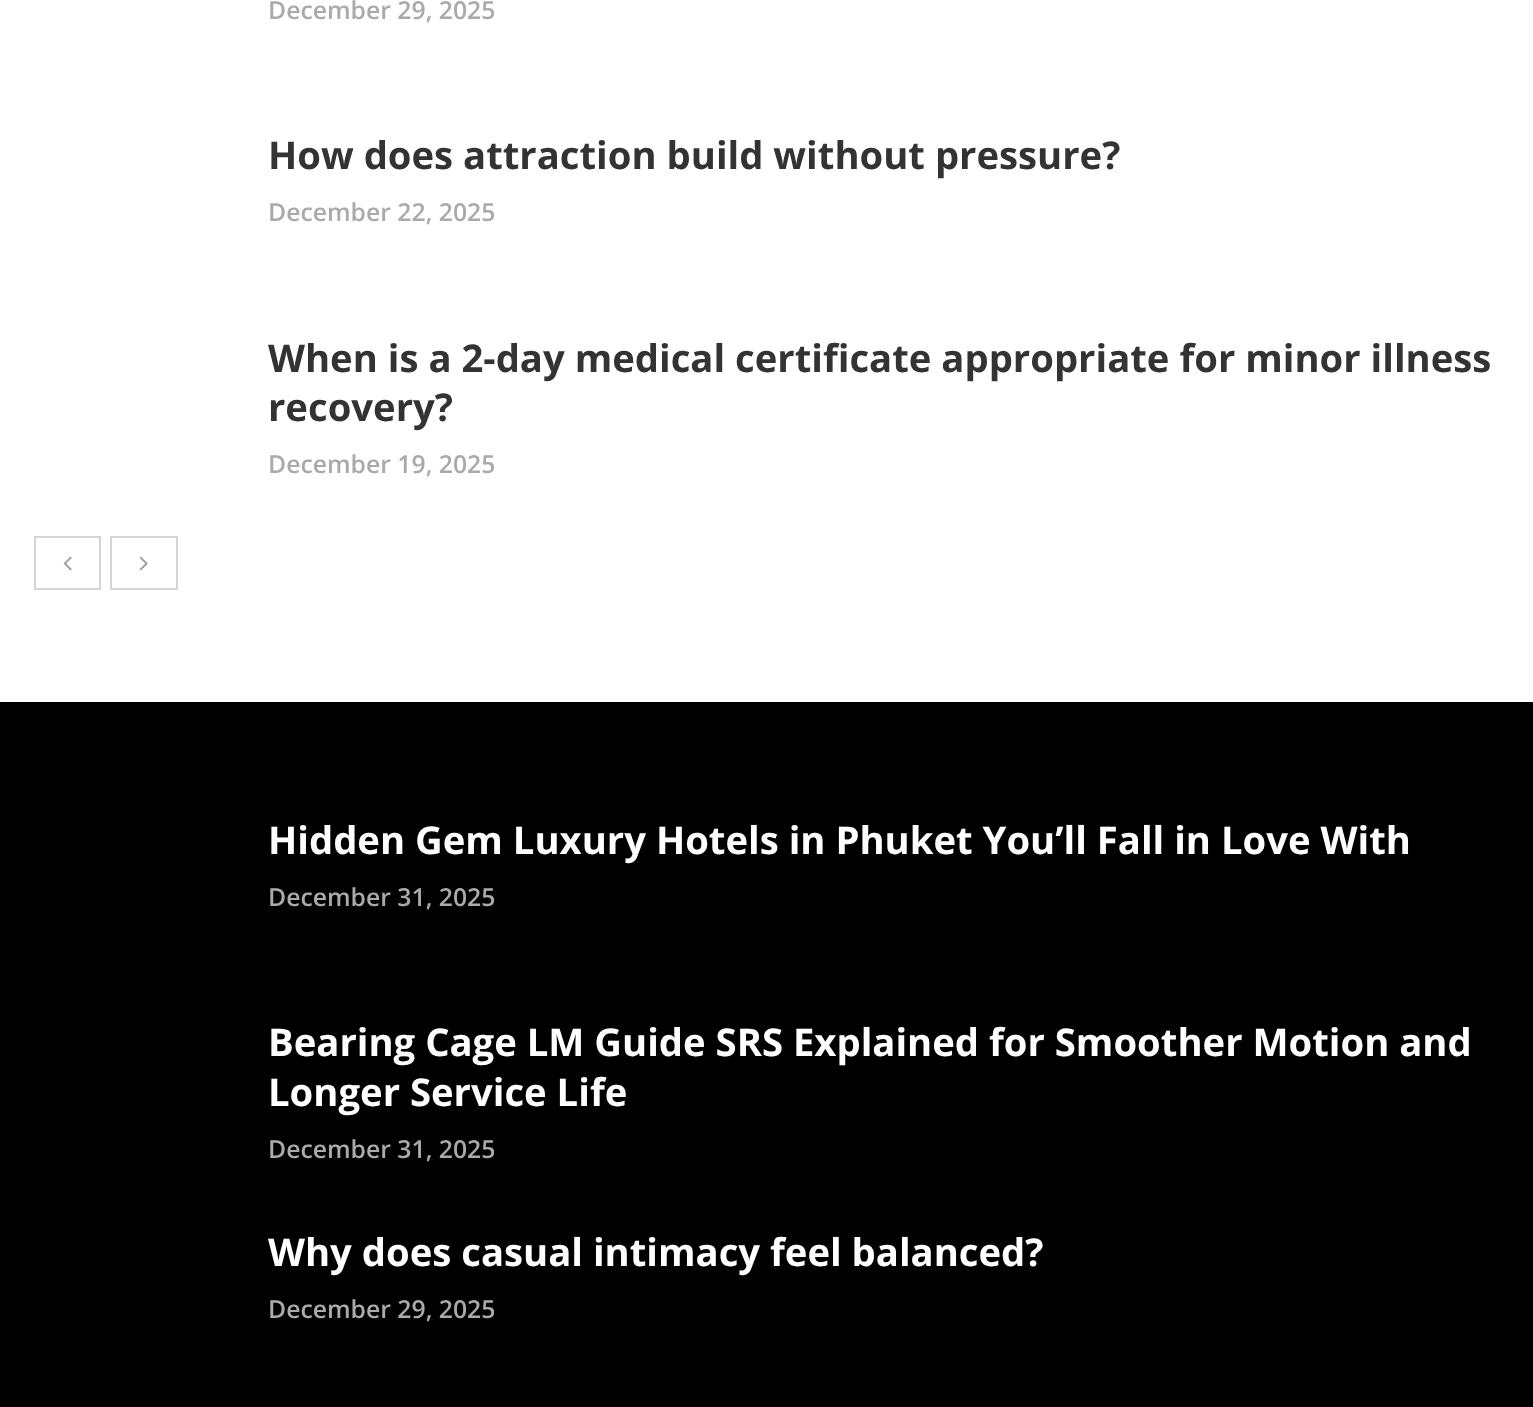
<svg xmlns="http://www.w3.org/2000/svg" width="1533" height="1407">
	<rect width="100%" height="100%" fill="#FFFFFF" />
	<text x="268" y="19" font-family="Open Sans" font-size="24.75" font-weight="600" fill="#AAAAAA">December 29, 2025</text>
	<text x="268" y="169" font-family="Open Sans" font-size="38.25" font-weight="700" fill="#333333">How does attraction build without pressure?</text>
	<text x="268" y="221" font-family="Open Sans" font-size="24.75" font-weight="600" fill="#AAAAAA">December 22, 2025</text>
	<g font-family="Open Sans" font-size="38.25" font-weight="700" fill="#333333">
		<text x="268" y="372">When is a 2-day medical certificate appropriate for minor illness</text>
		<text x="268" y="421">recovery?</text>
	</g>
	<text x="268" y="473" font-family="Open Sans" font-size="24.75" font-weight="600" fill="#AAAAAA">December 19, 2025</text>
	<rect x="35" y="537" width="65" height="52" fill="none" stroke="#D4D4D4" stroke-width="2" />
	<image x="63" y="556" width="9" height="15" href="assets/img1.png" />
	<rect x="111" y="537" width="66" height="52" fill="none" stroke="#D4D4D4" stroke-width="2" />
	<image x="139" y="556" width="9" height="15" href="assets/img2.png" />
	<rect x="0" y="702" width="1533" height="705" fill="#000000" />
	<text x="268" y="854" font-family="Open Sans" font-size="38.25" font-weight="700" fill="#FFFFFF">Hidden Gem Luxury Hotels in Phuket You’ll Fall in Love With</text>
	<text x="268" y="906" font-family="Open Sans" font-size="24.75" font-weight="600" fill="#AAAAAA">December 31, 2025</text>
	<g font-family="Open Sans" font-size="38.25" font-weight="700" fill="#FFFFFF">
		<text x="268" y="1056">Bearing Cage LM Guide SRS Explained for Smoother Motion and</text>
		<text x="268" y="1106">Longer Service Life</text>
	</g>
	<text x="268" y="1158" font-family="Open Sans" font-size="24.75" font-weight="600" fill="#AAAAAA">December 31, 2025</text>
	<text x="268" y="1266" font-family="Open Sans" font-size="38.25" font-weight="700" fill="#FFFFFF">Why does casual intimacy feel balanced?</text>
	<text x="268" y="1318" font-family="Open Sans" font-size="24.75" font-weight="600" fill="#AAAAAA">December 29, 2025</text>
</svg>
